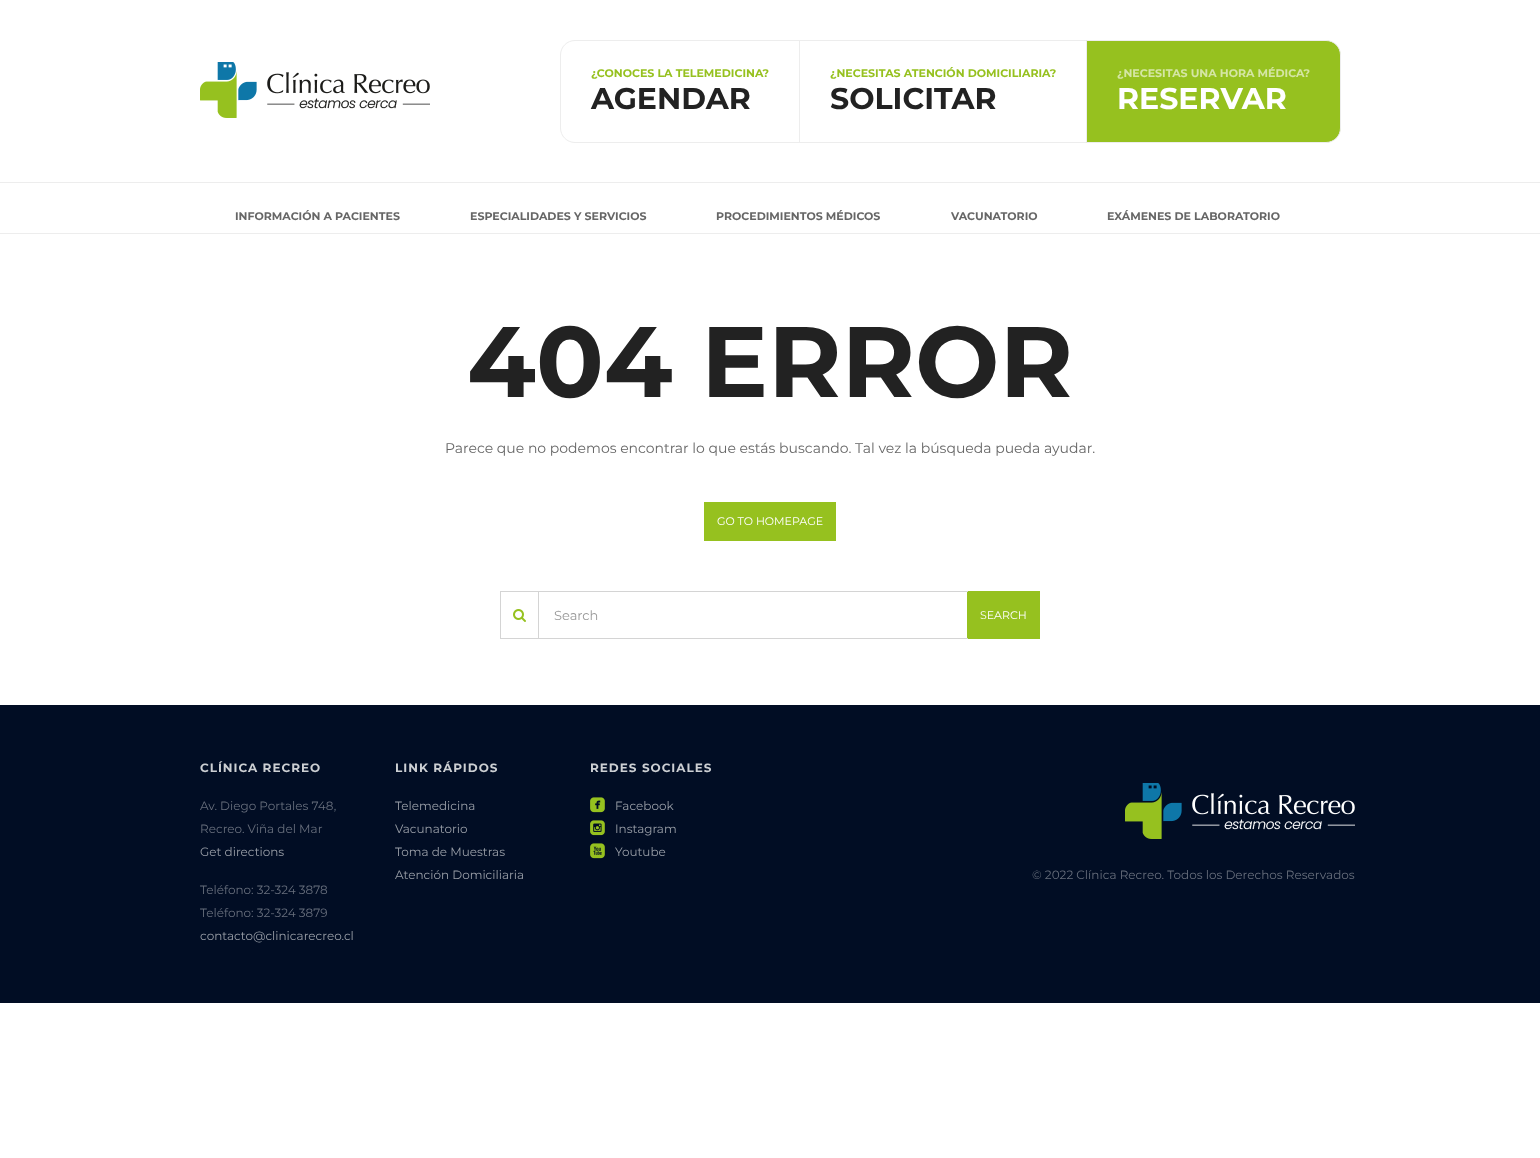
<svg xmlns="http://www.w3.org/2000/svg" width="1540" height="1158">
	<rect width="100%" height="100%" fill="#FFFFFF" />
	<image x="200" y="62" width="230" height="56" href="assets/img1.png" />
	<path d="M575 40.5H799.5V142.5H575C567 142.5 560.5 136 560.5 128V55C560.5 47 567 40.5 575 40.5Z" fill="none" stroke="#EDEDED" />
	<text x="591" y="77" font-family="Montserrat" font-size="11" font-weight="700" fill="#96C11F">¿CONOCES LA TELEMEDICINA?</text>
	<text x="591" y="109" font-family="Montserrat" font-size="30" font-weight="700" fill="#222222">AGENDAR</text>
	<rect x="799.5" y="40.5" width="287" height="102" fill="none" stroke="#EDEDED" />
	<text x="830" y="77" font-family="Montserrat" font-size="11" font-weight="700" fill="#96C11F">¿NECESITAS ATENCIÓN DOMICILIARIA?</text>
	<text x="830" y="109" font-family="Montserrat" font-size="30" font-weight="700" fill="#222222">SOLICITAR</text>
	<path d="M1086.5 40.5H1326C1334 40.5 1340.5 47 1340.5 55V128C1340.5 136 1334 142.5 1326 142.5H1086.5Z" fill="#96C11F" stroke="#EDEDED" />
	<text x="1117" y="77" font-family="Montserrat" font-size="11" font-weight="700" fill="#D5E6A5">¿NECESITAS UNA HORA MÉDICA?</text>
	<text x="1117" y="109" font-family="Montserrat" font-size="30" font-weight="700" fill="#FFFFFF">RESERVAR</text>
	<rect x="0" y="182" width="1540" height="1" fill="#EDEDED" />
	<rect x="0" y="233" width="1540" height="1" fill="#EDEDED" />
	<g font-family="Montserrat" font-size="11" font-weight="700" fill="#666666">
		<text x="235" y="220">INFORMACIÓN A PACIENTES</text>
		<text x="470" y="220">ESPECIALIDADES Y SERVICIOS</text>
		<text x="716" y="220">PROCEDIMIENTOS MÉDICOS</text>
		<text x="951" y="220">VACUNATORIO</text>
		<text x="1107" y="220">EXÁMENES DE LABORATORIO</text>
	</g>
	<text x="467" y="397" font-family="Montserrat" font-size="100" font-weight="700" fill="#222222">404 ERROR</text>
	<text x="445" y="453" font-family="Montserrat" font-size="14" fill="#666666">Parece que no podemos encontrar lo que estás buscando. Tal vez la búsqueda pueda ayudar.</text>
	<rect x="704" y="502" width="132" height="39" fill="#96C11F" />
	<text x="717" y="525" font-family="Montserrat" font-size="11" fill="#FFFFFF">GO TO HOMEPAGE</text>
	<rect x="500" y="591" width="38" height="1" fill="#D4D4D4" />
	<rect x="500" y="638" width="38" height="1" fill="#D4D4D4" />
	<rect x="500" y="591" width="1" height="48" fill="#D4D4D4" />
	<image x="513" y="609" width="13" height="13" href="assets/img2.png" />
	<rect x="967" y="591" width="73" height="48" fill="#96C11F" />
	<rect x="538" y="591" width="430" height="1" fill="#D4D4D4" />
	<rect x="538" y="638" width="430" height="1" fill="#D4D4D4" />
	<rect x="538" y="591" width="1" height="48" fill="#D4D4D4" />
	<text x="554" y="620" font-family="Montserrat" font-size="13" fill="#999999">Search</text>
	<text x="980" y="619" font-family="Montserrat" font-size="11" fill="#FFFFFF">SEARCH</text>
	<rect x="0" y="705" width="1540" height="298" fill="#010D24" />
	<text x="200" y="772" font-family="Montserrat" font-size="12" font-weight="700" letter-spacing="1" fill="#CCCFD3">CLÍNICA RECREO</text>
	<g font-family="Montserrat" font-size="12" fill="#676E7C">
		<text x="200" y="810">Av. Diego Portales 748,</text>
		<text x="200" y="833">Recreo. Viña del Mar</text>
	</g>
	<text x="200" y="856" font-family="Montserrat" font-size="12" fill="#999EA7">Get directions</text>
	<g font-family="Montserrat" font-size="12" fill="#676E7C">
		<text x="200" y="894">Teléfono: 32-324 3878</text>
		<text x="200" y="917">Teléfono: 32-324 3879</text>
	</g>
	<text x="200" y="940" font-family="Montserrat" font-size="12" fill="#999EA7">contacto@clinicarecreo.cl</text>
	<text x="395" y="772" font-family="Montserrat" font-size="12" font-weight="700" letter-spacing="1" fill="#CCCFD3">LINK RÁPIDOS</text>
	<g font-family="Montserrat" font-size="12" fill="#999EA7">
		<text x="395" y="810">Telemedicina</text>
		<text x="395" y="833">Vacunatorio</text>
		<text x="395" y="856">Toma de Muestras</text>
		<text x="395" y="879">Atención Domiciliaria</text>
	</g>
	<text x="590" y="772" font-family="Montserrat" font-size="12" font-weight="700" letter-spacing="1" fill="#CCCFD3">REDES SOCIALES</text>
	<image x="590" y="797" width="15" height="16" href="assets/img3.png" />
	<text x="615" y="810" font-family="Montserrat" font-size="12" fill="#999EA7">Facebook</text>
	<image x="590" y="820" width="15" height="16" href="assets/img4.png" />
	<text x="615" y="833" font-family="Montserrat" font-size="12" fill="#999EA7">Instagram</text>
	<image x="590" y="843" width="15" height="16" href="assets/img5.png" />
	<text x="615" y="856" font-family="Montserrat" font-size="12" fill="#999EA7">Youtube</text>
	<image x="1125" y="783" width="230" height="56" href="assets/img6.png" />
	<text x="1032" y="879" font-family="Montserrat" font-size="12" fill="#676E7C">© 2022 Clínica Recreo. Todos los Derechos Reservados</text>
</svg>
